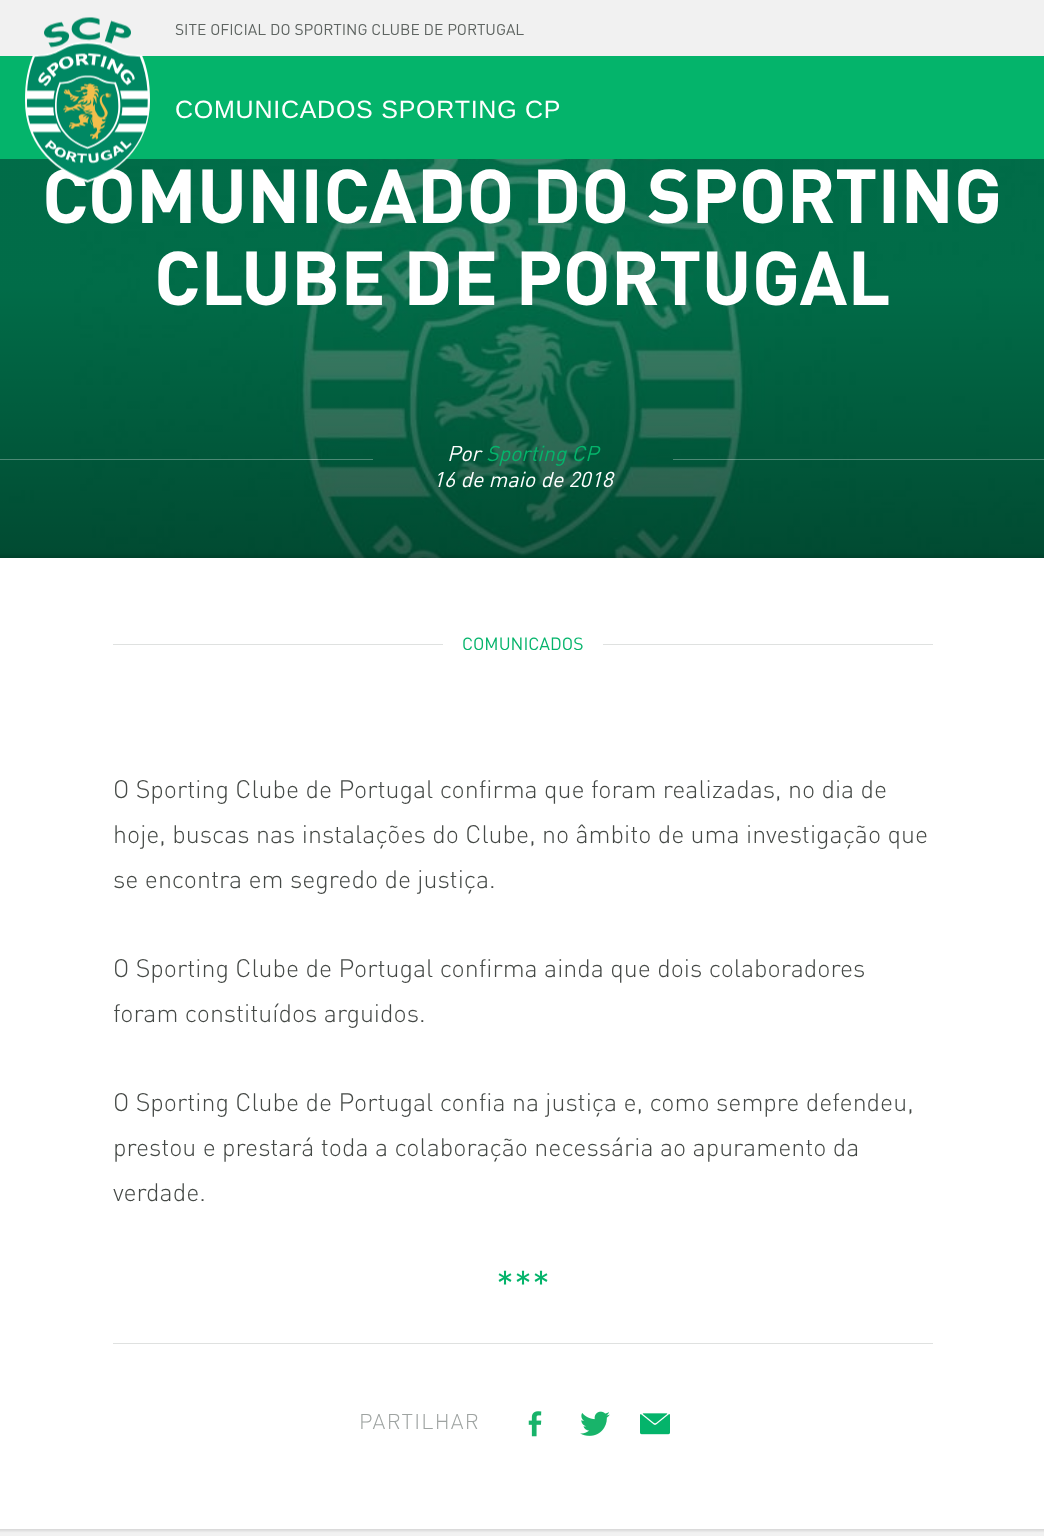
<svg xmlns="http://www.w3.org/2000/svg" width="1044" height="1536">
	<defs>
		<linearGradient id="g1" gradientUnits="userSpaceOnUse" x1="522" y1="31" x2="523" y2="731"><stop offset="0" stop-color="#000000" stop-opacity="0.18" /><stop offset="0.36" stop-color="#000000" stop-opacity="0.18" /><stop offset="1" stop-color="#000000" stop-opacity="0.6" /></linearGradient>
	</defs>
	<rect width="100%" height="100%" fill="#F1F1F1" />
	<text x="175" y="35" font-family="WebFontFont" font-size="15.5" fill="#5E6461">SITE OFICIAL DO SPORTING CLUBE DE PORTUGAL</text>
	<rect x="0" y="56" width="1044" height="103" fill="#04B46B" />
	<image x="0" y="159" width="1044" height="399" href="assets/img2.png" />
	<rect x="0" y="159" width="1044" height="399" fill="url(#g1)" />
	<text x="42" y="223" font-family="WebFontFont" font-size="75" font-weight="700" fill="#FFFFFF">COMUNICADO DO SPORTING</text>
	<image x="25" y="17" width="125" height="166" href="assets/img1.png" />
	<text x="175" y="118" font-family="Liberation Sans" font-size="25" letter-spacing="0.75" fill="#FFFFFF">COMUNICADOS SPORTING CP</text>
	<text x="154" y="305" font-family="WebFontFont" font-size="75" font-weight="700" fill="#FFFFFF">CLUBE DE PORTUGAL</text>
	<rect x="0" y="459" width="373" height="1" fill="#FFFFFF" fill-opacity="0.3" />
	<text x="447" y="461" font-family="WebFontFont" font-size="21.25" font-style="italic" fill="#FFFFFF">Por</text>
	<text x="486" y="461" font-family="WebFontFont" font-size="21.25" font-style="italic" fill="#04B46B">Sporting CP</text>
	<text x="433" y="487" font-family="WebFontFont" font-size="21.25" font-style="italic" fill="#FFFFFF">16 de maio de 2018</text>
	<rect x="673" y="459" width="371" height="1" fill="#FFFFFF" fill-opacity="0.3" />
	<rect x="-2" y="555" width="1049" height="976" fill="#000000" fill-opacity="0.1" filter="blur(1px)" />
	<rect x="0" y="558" width="1044" height="971" fill="#FFFFFF" />
	<rect x="113" y="644" width="820" height="1" fill="#DFE1E0" />
	<rect x="443" y="644" width="160" height="1" fill="#FFFFFF" />
	<text x="462" y="650" font-family="WebFontFont" font-size="17.5" fill="#04B46B">COMUNICADOS</text>
	<g font-family="WebFontFont" font-size="25" font-weight="300" fill="#454946">
		<text x="113" y="798">O Sporting Clube de Portugal confirma que foram realizadas, no dia de</text>
		<text x="113" y="843">hoje, buscas nas instalações do Clube, no âmbito de uma investigação que</text>
		<text x="113" y="888">se encontra em segredo de justiça.</text>
		<text x="113" y="977">O Sporting Clube de Portugal confirma ainda que dois colaboradores</text>
		<text x="113" y="1022">foram constituídos arguidos.</text>
		<text x="113" y="1111">O Sporting Clube de Portugal confia na justiça e, como sempre defendeu,</text>
		<text x="113" y="1156">prestou e prestará toda a colaboração necessária ao apuramento da</text>
		<text x="113" y="1201">verdade.</text>
	</g>
	<text x="496" y="1298" font-family="WebFontFont" font-size="38" fill="#04B46B">***</text>
	<rect x="113" y="1343" width="820" height="1" fill="#DFE1E0" />
	<text x="359" y="1429" font-family="WebFontFont" font-size="21.25" font-weight="300" letter-spacing="1.25" fill="#9EA3A1">PARTILHAR</text>
	<image x="528" y="1411" width="14" height="26" href="assets/img3.png" />
	<image x="580" y="1411" width="30" height="25" href="assets/img4.png" />
	<image x="640" y="1413" width="30" height="22" href="assets/img5.png" />
</svg>
